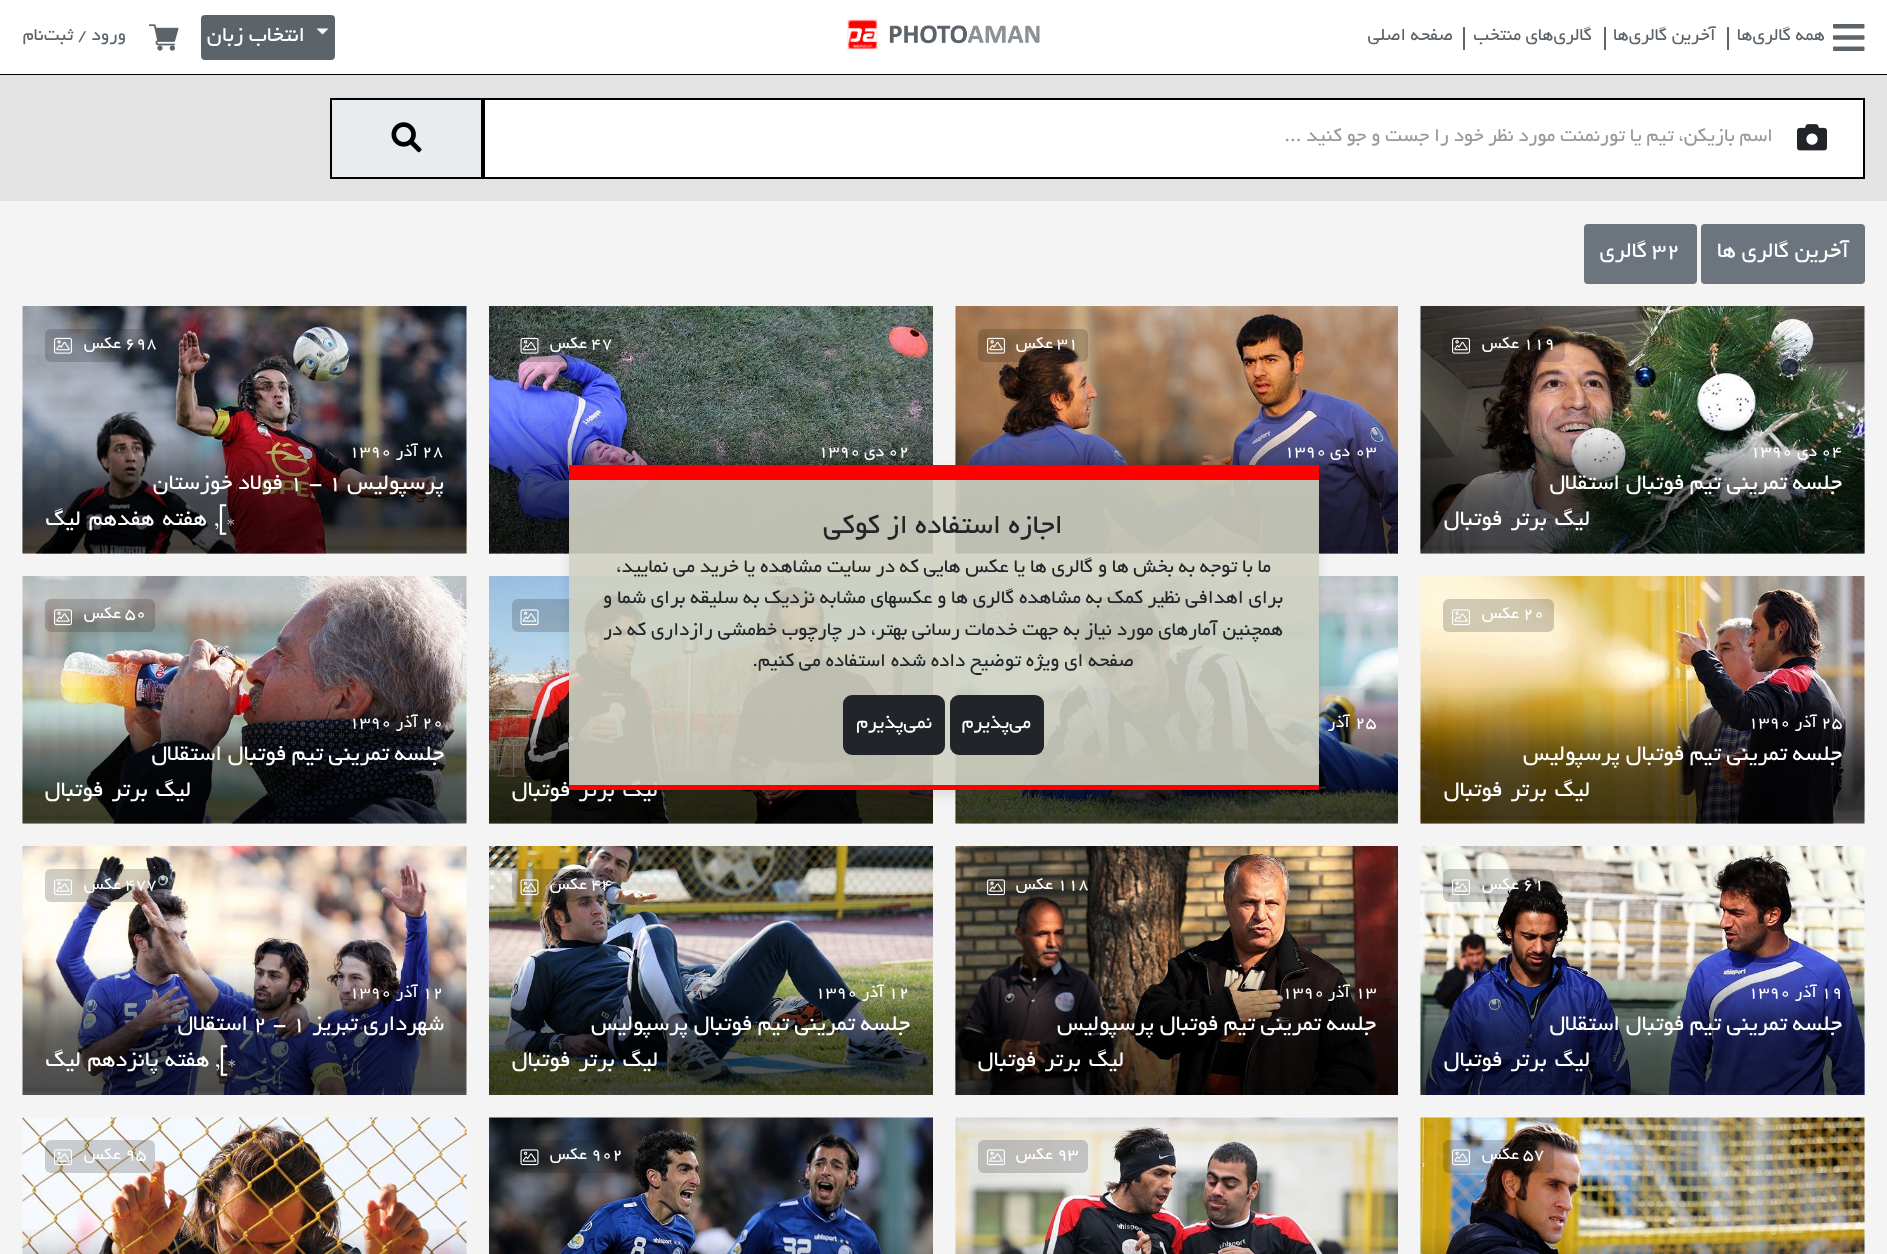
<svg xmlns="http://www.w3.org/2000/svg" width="1887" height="1254">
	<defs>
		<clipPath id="clip1"><path d="M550 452H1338V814H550ZM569 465H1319V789H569Z" clip-rule="evenodd" /></clipPath>
	</defs>
	<rect width="100%" height="100%" fill="#FFFFFF" />
	<rect x="0" y="74" width="1887" height="1" fill="#000000" />
	<image x="1833" y="24" width="32" height="27" href="assets/img1.png" />
	<text x="1825" y="40" font-family="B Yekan" font-size="19.5" direction="rtl" fill="#5C646A">همه گالری‌ها</text>
	<rect x="1727" y="27" width="2" height="23" fill="#5C646A" />
	<text x="1716" y="40" font-family="B Yekan" font-size="19.5" direction="rtl" fill="#5C646A">آخرین گالری‌ها</text>
	<rect x="1604" y="27" width="2" height="23" fill="#5C646A" />
	<text x="1592" y="40" font-family="B Yekan" font-size="19.5" direction="rtl" fill="#5C646A">گالری‌های منتخب</text>
	<rect x="1463" y="27" width="2" height="23" fill="#5C646A" />
	<text x="1453" y="40" font-family="B Yekan" font-size="19.5" direction="rtl" fill="#5C646A">صفحه اصلی</text>
	<image x="889" y="25" width="151" height="19" href="assets/img2.png" />
	<image x="847" y="19" width="31" height="31" href="assets/img3.png" />
	<rect x="201" y="15" width="134" height="45" rx="4" fill="#5C646A" />
	<path d="M316.5 28.5H328.5L322.5 34.5Z" fill="#FFFFFF" />
	<text x="305" y="41" font-family="B Yekan" font-size="23" direction="rtl" fill="#FFFFFF">انتخاب زبان</text>
	<image x="149" y="24" width="30" height="27" href="assets/img4.png" />
	<text x="126" y="40" font-family="B Yekan" font-size="19.5" direction="rtl" fill="#5C646A">ورود / ثبت‌نام</text>
	<rect x="0" y="201" width="1887" height="1053" fill="#F4F4F4" />
	<rect x="0" y="75" width="1887" height="126" fill="#E3E3E3" />
	<rect x="484" y="99" width="1380" height="79" fill="#FFFFFF" stroke="#000000" stroke-width="2" />
	<image x="1797" y="124" width="30" height="27" href="assets/img5.png" />
	<text x="1773" y="141" font-family="B Yekan" font-size="21" direction="rtl" fill="#999A9B">اسم بازیکن، تیم یا تورنمنت مورد نظر خود را جست و جو کنید ...</text>
	<rect x="331" y="99" width="151" height="79" fill="#E9ECEF" stroke="#000000" stroke-width="2" />
	<image x="391" y="122" width="31" height="31" href="assets/img6.png" />
	<rect x="1701" y="224" width="164" height="60" rx="4" fill="#6C757D" />
	<text x="1849" y="257" font-family="B Yekan" font-size="24" direction="rtl" fill="#FFFFFF">آخرین گالری ها</text>
	<rect x="1584" y="224" width="113" height="60" rx="4" fill="#6C757D" />
	<text x="1652" y="257" font-family="B Yekan" font-size="24" fill="#FFFFFF">32</text>
	<text x="1647" y="257" font-family="B Yekan" font-size="24" direction="rtl" fill="#FFFFFF">گالری</text>
	<image x="1420" y="306" width="445" height="248" href="assets/img7.png" />
	<rect x="1443" y="329" width="122" height="33" rx="6" fill="#1A1919" fill-opacity="0.2" />
	<text x="1523" y="348" font-family="B Yekan" font-size="18" fill="#FFFFFF">119</text>
	<text x="1519" y="348" font-family="B Yekan" font-size="18" direction="rtl" fill="#FFFFFF">عکس</text>
	<image x="1452" y="337" width="18" height="17" href="assets/img8.png" />
	<image x="1420" y="418" width="445" height="136" href="assets/img9.png" />
	<text x="1821" y="456" font-family="B Yekan" font-size="18" fill="#FFFFFF">04</text>
	<text x="1817" y="456" font-family="B Yekan" font-size="18" direction="rtl" fill="#FFFFFF">دی</text>
	<text x="1750" y="456" font-family="B Yekan" font-size="18" fill="#FFFFFF">1390</text>
	<g font-family="B Yekan" font-size="24" direction="rtl" fill="#FFFFFF">
		<text x="1842" y="489">جلسه تمرینی تیم فوتبال استقلال</text>
		<text x="1590" y="525" word-spacing="2.5">لیگ برتر فوتبال</text>
	</g>
	<image x="955" y="306" width="443" height="248" href="assets/img10.png" />
	<rect x="978" y="329" width="110" height="33" rx="6" fill="#1A1919" fill-opacity="0.2" />
	<text x="1057" y="348" font-family="B Yekan" font-size="18" fill="#FFFFFF">31</text>
	<text x="1053" y="348" font-family="B Yekan" font-size="18" direction="rtl" fill="#FFFFFF">عکس</text>
	<image x="987" y="337" width="18" height="17" href="assets/img11.png" />
	<image x="955" y="418" width="443" height="136" href="assets/img12.png" />
	<text x="1355" y="456" font-family="B Yekan" font-size="18" fill="#FFFFFF">03</text>
	<text x="1350" y="456" font-family="B Yekan" font-size="18" direction="rtl" fill="#FFFFFF">دی</text>
	<text x="1284" y="456" font-family="B Yekan" font-size="18" fill="#FFFFFF">1390</text>
	<image x="489" y="306" width="444" height="248" href="assets/img13.png" />
	<rect x="512" y="329" width="109" height="33" rx="6" fill="#1A1919" fill-opacity="0.2" />
	<text x="591" y="348" font-family="B Yekan" font-size="18" fill="#FFFFFF">47</text>
	<text x="587" y="348" font-family="B Yekan" font-size="18" direction="rtl" fill="#FFFFFF">عکس</text>
	<image x="520" y="337" width="19" height="17" href="assets/img14.png" />
	<image x="489" y="418" width="444" height="136" href="assets/img15.png" />
	<text x="888" y="456" font-family="B Yekan" font-size="18" fill="#FFFFFF">02</text>
	<text x="884" y="456" font-family="B Yekan" font-size="18" direction="rtl" fill="#FFFFFF">دی</text>
	<text x="818" y="456" font-family="B Yekan" font-size="18" fill="#FFFFFF">1390</text>
	<image x="22" y="306" width="445" height="248" href="assets/img16.png" />
	<rect x="45" y="329" width="120" height="33" rx="6" fill="#1A1919" fill-opacity="0.2" />
	<text x="125" y="348" font-family="B Yekan" font-size="18" fill="#FFFFFF">698</text>
	<text x="121" y="348" font-family="B Yekan" font-size="18" direction="rtl" fill="#FFFFFF">عکس</text>
	<image x="54" y="337" width="18" height="17" href="assets/img17.png" />
	<image x="22" y="418" width="445" height="136" href="assets/img18.png" />
	<text x="422" y="456" font-family="B Yekan" font-size="18" fill="#FFFFFF">28</text>
	<text x="418" y="456" font-family="B Yekan" font-size="18" direction="rtl" fill="#FFFFFF">آذر</text>
	<text x="349" y="456" font-family="B Yekan" font-size="18" fill="#FFFFFF">1390</text>
	<text x="444" y="489" font-family="B Yekan" font-size="24" direction="rtl" fill="#FFFFFF">پرسپولیس</text>
	<text x="289" y="489" font-family="B Yekan" font-size="24" fill="#FFFFFF">۱ - ۱</text>
	<g font-family="B Yekan" font-size="24" direction="rtl" fill="#FFFFFF">
		<text x="283" y="489">فولاد خوزستان</text>
		<text x="235" y="525" word-spacing="2.5">*], هفته هفدهم لیگ</text>
	</g>
	<image x="1420" y="576" width="445" height="248" href="assets/img19.png" />
	<rect x="1443" y="599" width="111" height="33" rx="6" fill="#1A1919" fill-opacity="0.2" />
	<text x="1523" y="618" font-family="B Yekan" font-size="18" fill="#FFFFFF">20</text>
	<text x="1519" y="618" font-family="B Yekan" font-size="18" direction="rtl" fill="#FFFFFF">عکس</text>
	<image x="1452" y="609" width="18" height="17" href="assets/img20.png" />
	<image x="1420" y="688" width="445" height="136" href="assets/img21.png" />
	<text x="1821" y="727" font-family="B Yekan" font-size="18" fill="#FFFFFF">25</text>
	<text x="1817" y="727" font-family="B Yekan" font-size="18" direction="rtl" fill="#FFFFFF">آذر</text>
	<text x="1748" y="727" font-family="B Yekan" font-size="18" fill="#FFFFFF">1390</text>
	<g font-family="B Yekan" font-size="24" direction="rtl" fill="#FFFFFF">
		<text x="1842" y="760">جلسه تمرینی تیم فوتبال پرسپولیس</text>
		<text x="1590" y="796" word-spacing="2.5">لیگ برتر فوتبال</text>
	</g>
	<image x="955" y="576" width="443" height="248" href="assets/img22.png" />
	<rect x="978" y="599" width="110" height="33" rx="6" fill="#1A1919" fill-opacity="0.2" />
	<image x="987" y="609" width="18" height="17" href="assets/img23.png" />
	<image x="955" y="688" width="443" height="136" href="assets/img24.png" />
	<text x="1355" y="727" font-family="B Yekan" font-size="18" fill="#FFFFFF">25</text>
	<text x="1350" y="727" font-family="B Yekan" font-size="18" direction="rtl" fill="#FFFFFF">آذر</text>
	<image x="22" y="576" width="445" height="248" href="assets/img25.png" />
	<rect x="45" y="599" width="110" height="33" rx="6" fill="#1A1919" fill-opacity="0.2" />
	<text x="125" y="618" font-family="B Yekan" font-size="18" fill="#FFFFFF">50</text>
	<text x="121" y="618" font-family="B Yekan" font-size="18" direction="rtl" fill="#FFFFFF">عکس</text>
	<image x="54" y="609" width="18" height="17" href="assets/img26.png" />
	<image x="22" y="688" width="445" height="136" href="assets/img27.png" />
	<text x="422" y="727" font-family="B Yekan" font-size="18" fill="#FFFFFF">20</text>
	<text x="418" y="727" font-family="B Yekan" font-size="18" direction="rtl" fill="#FFFFFF">آذر</text>
	<text x="349" y="727" font-family="B Yekan" font-size="18" fill="#FFFFFF">1390</text>
	<g font-family="B Yekan" font-size="24" direction="rtl" fill="#FFFFFF">
		<text x="444" y="760">جلسه تمرینی تیم فوتبال استقلال</text>
		<text x="191" y="796" word-spacing="2.5">لیگ برتر فوتبال</text>
	</g>
	<image x="489" y="576" width="444" height="248" href="assets/img28.png" />
	<rect x="512" y="599" width="109" height="33" rx="6" fill="#1A1919" fill-opacity="0.2" />
	<image x="520" y="609" width="19" height="17" href="assets/img29.png" />
	<image x="489" y="688" width="444" height="136" href="assets/img30.png" />
	<text x="658" y="796" word-spacing="2.5" font-family="B Yekan" font-size="24" direction="rtl" fill="#FFFFFF">لیگ برتر فوتبال</text>
	<image x="1420" y="846" width="445" height="249" href="assets/img31.png" />
	<rect x="1443" y="869" width="111" height="33" rx="6" fill="#1A1919" fill-opacity="0.2" />
	<text x="1523" y="889" font-family="B Yekan" font-size="18" fill="#FFFFFF">61</text>
	<text x="1519" y="889" font-family="B Yekan" font-size="18" direction="rtl" fill="#FFFFFF">عکس</text>
	<image x="1452" y="879" width="18" height="17" href="assets/img32.png" />
	<image x="1420" y="959" width="445" height="136" href="assets/img33.png" />
	<text x="1821" y="997" font-family="B Yekan" font-size="18" fill="#FFFFFF">19</text>
	<text x="1817" y="997" font-family="B Yekan" font-size="18" direction="rtl" fill="#FFFFFF">آذر</text>
	<text x="1748" y="997" font-family="B Yekan" font-size="18" fill="#FFFFFF">1390</text>
	<g font-family="B Yekan" font-size="24" direction="rtl" fill="#FFFFFF">
		<text x="1842" y="1030">جلسه تمرینی تیم فوتبال استقلال</text>
		<text x="1590" y="1066" word-spacing="2.5">لیگ برتر فوتبال</text>
	</g>
	<image x="955" y="846" width="443" height="249" href="assets/img34.png" />
	<rect x="978" y="869" width="120" height="33" rx="6" fill="#1A1919" fill-opacity="0.2" />
	<text x="1057" y="889" font-family="B Yekan" font-size="18" fill="#FFFFFF">118</text>
	<text x="1053" y="889" font-family="B Yekan" font-size="18" direction="rtl" fill="#FFFFFF">عکس</text>
	<image x="987" y="879" width="18" height="17" href="assets/img35.png" />
	<image x="955" y="959" width="443" height="136" href="assets/img36.png" />
	<text x="1355" y="997" font-family="B Yekan" font-size="18" fill="#FFFFFF">13</text>
	<text x="1350" y="997" font-family="B Yekan" font-size="18" direction="rtl" fill="#FFFFFF">آذر</text>
	<text x="1282" y="997" font-family="B Yekan" font-size="18" fill="#FFFFFF">1390</text>
	<g font-family="B Yekan" font-size="24" direction="rtl" fill="#FFFFFF">
		<text x="1376" y="1030">جلسه تمرینی تیم فوتبال پرسپولیس</text>
		<text x="1124" y="1066" word-spacing="2.5">لیگ برتر فوتبال</text>
	</g>
	<image x="489" y="846" width="444" height="249" href="assets/img37.png" />
	<rect x="512" y="869" width="109" height="33" rx="6" fill="#1A1919" fill-opacity="0.2" />
	<text x="591" y="889" font-family="B Yekan" font-size="18" fill="#FFFFFF">44</text>
	<text x="587" y="889" font-family="B Yekan" font-size="18" direction="rtl" fill="#FFFFFF">عکس</text>
	<image x="520" y="879" width="19" height="17" href="assets/img38.png" />
	<image x="489" y="959" width="444" height="136" href="assets/img39.png" />
	<text x="888" y="997" font-family="B Yekan" font-size="18" fill="#FFFFFF">12</text>
	<text x="884" y="997" font-family="B Yekan" font-size="18" direction="rtl" fill="#FFFFFF">آذر</text>
	<text x="815" y="997" font-family="B Yekan" font-size="18" fill="#FFFFFF">1390</text>
	<g font-family="B Yekan" font-size="24" direction="rtl" fill="#FFFFFF">
		<text x="910" y="1030">جلسه تمرینی تیم فوتبال پرسپولیس</text>
		<text x="658" y="1066" word-spacing="2.5">لیگ برتر فوتبال</text>
	</g>
	<image x="22" y="846" width="445" height="249" href="assets/img40.png" />
	<rect x="45" y="869" width="120" height="33" rx="6" fill="#1A1919" fill-opacity="0.2" />
	<text x="125" y="889" font-family="B Yekan" font-size="18" fill="#FFFFFF">477</text>
	<text x="121" y="889" font-family="B Yekan" font-size="18" direction="rtl" fill="#FFFFFF">عکس</text>
	<image x="54" y="879" width="18" height="17" href="assets/img41.png" />
	<image x="22" y="959" width="445" height="136" href="assets/img42.png" />
	<text x="422" y="997" font-family="B Yekan" font-size="18" fill="#FFFFFF">12</text>
	<text x="418" y="997" font-family="B Yekan" font-size="18" direction="rtl" fill="#FFFFFF">آذر</text>
	<text x="349" y="997" font-family="B Yekan" font-size="18" fill="#FFFFFF">1390</text>
	<text x="444" y="1030" font-family="B Yekan" font-size="24" direction="rtl" fill="#FFFFFF">شهرداری تبریز</text>
	<text x="253" y="1030" font-family="B Yekan" font-size="24" fill="#FFFFFF">۲ - ۱</text>
	<g font-family="B Yekan" font-size="24" direction="rtl" fill="#FFFFFF">
		<text x="248" y="1030">استقلال</text>
		<text x="236" y="1066" word-spacing="1">*], هفته پانزدهم لیگ</text>
	</g>
	<image x="1420" y="1117" width="445" height="137" href="assets/img43.png" />
	<rect x="1443" y="1140" width="111" height="33" rx="6" fill="#1A1919" fill-opacity="0.2" />
	<text x="1523" y="1159" font-family="B Yekan" font-size="18" fill="#FFFFFF">57</text>
	<text x="1519" y="1159" font-family="B Yekan" font-size="18" direction="rtl" fill="#FFFFFF">عکس</text>
	<image x="1452" y="1149" width="18" height="17" href="assets/img44.png" />
	<image x="1420" y="1229" width="445" height="25" href="assets/img45.png" />
	<image x="955" y="1117" width="443" height="137" href="assets/img46.png" />
	<rect x="978" y="1140" width="110" height="33" rx="6" fill="#1A1919" fill-opacity="0.2" />
	<text x="1057" y="1159" font-family="B Yekan" font-size="18" fill="#FFFFFF">93</text>
	<text x="1053" y="1159" font-family="B Yekan" font-size="18" direction="rtl" fill="#FFFFFF">عکس</text>
	<image x="987" y="1149" width="18" height="17" href="assets/img47.png" />
	<image x="955" y="1229" width="443" height="25" href="assets/img48.png" />
	<image x="489" y="1117" width="444" height="137" href="assets/img49.png" />
	<rect x="512" y="1140" width="120" height="33" rx="6" fill="#1A1919" fill-opacity="0.2" />
	<text x="591" y="1159" font-family="B Yekan" font-size="18" fill="#FFFFFF">902</text>
	<text x="587" y="1159" font-family="B Yekan" font-size="18" direction="rtl" fill="#FFFFFF">عکس</text>
	<image x="520" y="1149" width="19" height="17" href="assets/img50.png" />
	<image x="489" y="1229" width="444" height="25" href="assets/img51.png" />
	<image x="22" y="1117" width="445" height="137" href="assets/img52.png" />
	<rect x="45" y="1140" width="110" height="33" rx="6" fill="#1A1919" fill-opacity="0.2" />
	<text x="125" y="1159" font-family="B Yekan" font-size="18" fill="#FFFFFF">95</text>
	<text x="121" y="1159" font-family="B Yekan" font-size="18" direction="rtl" fill="#FFFFFF">عکس</text>
	<image x="54" y="1149" width="18" height="17" href="assets/img53.png" />
	<image x="22" y="1229" width="445" height="25" href="assets/img54.png" />
	<g clip-path="url(#clip1)">
		<rect x="569" y="471" width="750" height="324" fill="#000000" fill-opacity="0.1" filter="blur(6px)" />
	</g>
	<rect x="569" y="480" width="750" height="305" fill="#D0D1C2" fill-opacity="0.9" />
	<rect x="569" y="465" width="750" height="15" fill="#FF0000" />
	<rect x="569" y="785" width="750" height="5" fill="#FF0000" />
	<text x="1063" y="533" font-family="B Yekan" font-size="30" direction="rtl" fill="#212529">اجازه استفاده از کوکی</text>
	<g font-family="B Yekan" font-size="21" direction="rtl" fill="#212529">
		<text x="1271" y="572">ما با توجه به بخش ها و گالری ها یا عکس هایی که در سایت مشاهده یا خرید می نمایید،</text>
		<text x="1283" y="603">برای اهدافی نظیر کمک به مشاهده گالری ها و عکسهای مشابه نزدیک به سلیقه برای شما و</text>
		<text x="1283" y="635">همچنین آمارهای مورد نیاز به جهت خدمات رسانی بهتر، در چارچوب خط‌مشی رازداری که در</text>
		<text x="1134" y="666">صفحه ای ویژه توضیح داده شده استفاده می کنیم.</text>
	</g>
	<rect x="951" y="696" width="92" height="58" rx="8" fill="#212529" stroke="#212529" stroke-width="2" />
	<text x="1031" y="728" font-family="B Yekan" font-size="21" direction="rtl" fill="#FFFFFF">می‌پذیرم</text>
	<rect x="844" y="696" width="100" height="58" rx="8" fill="#212529" stroke="#212529" stroke-width="2" />
	<text x="932" y="728" font-family="B Yekan" font-size="21" direction="rtl" fill="#FFFFFF">نمی‌پذیرم</text>
</svg>
